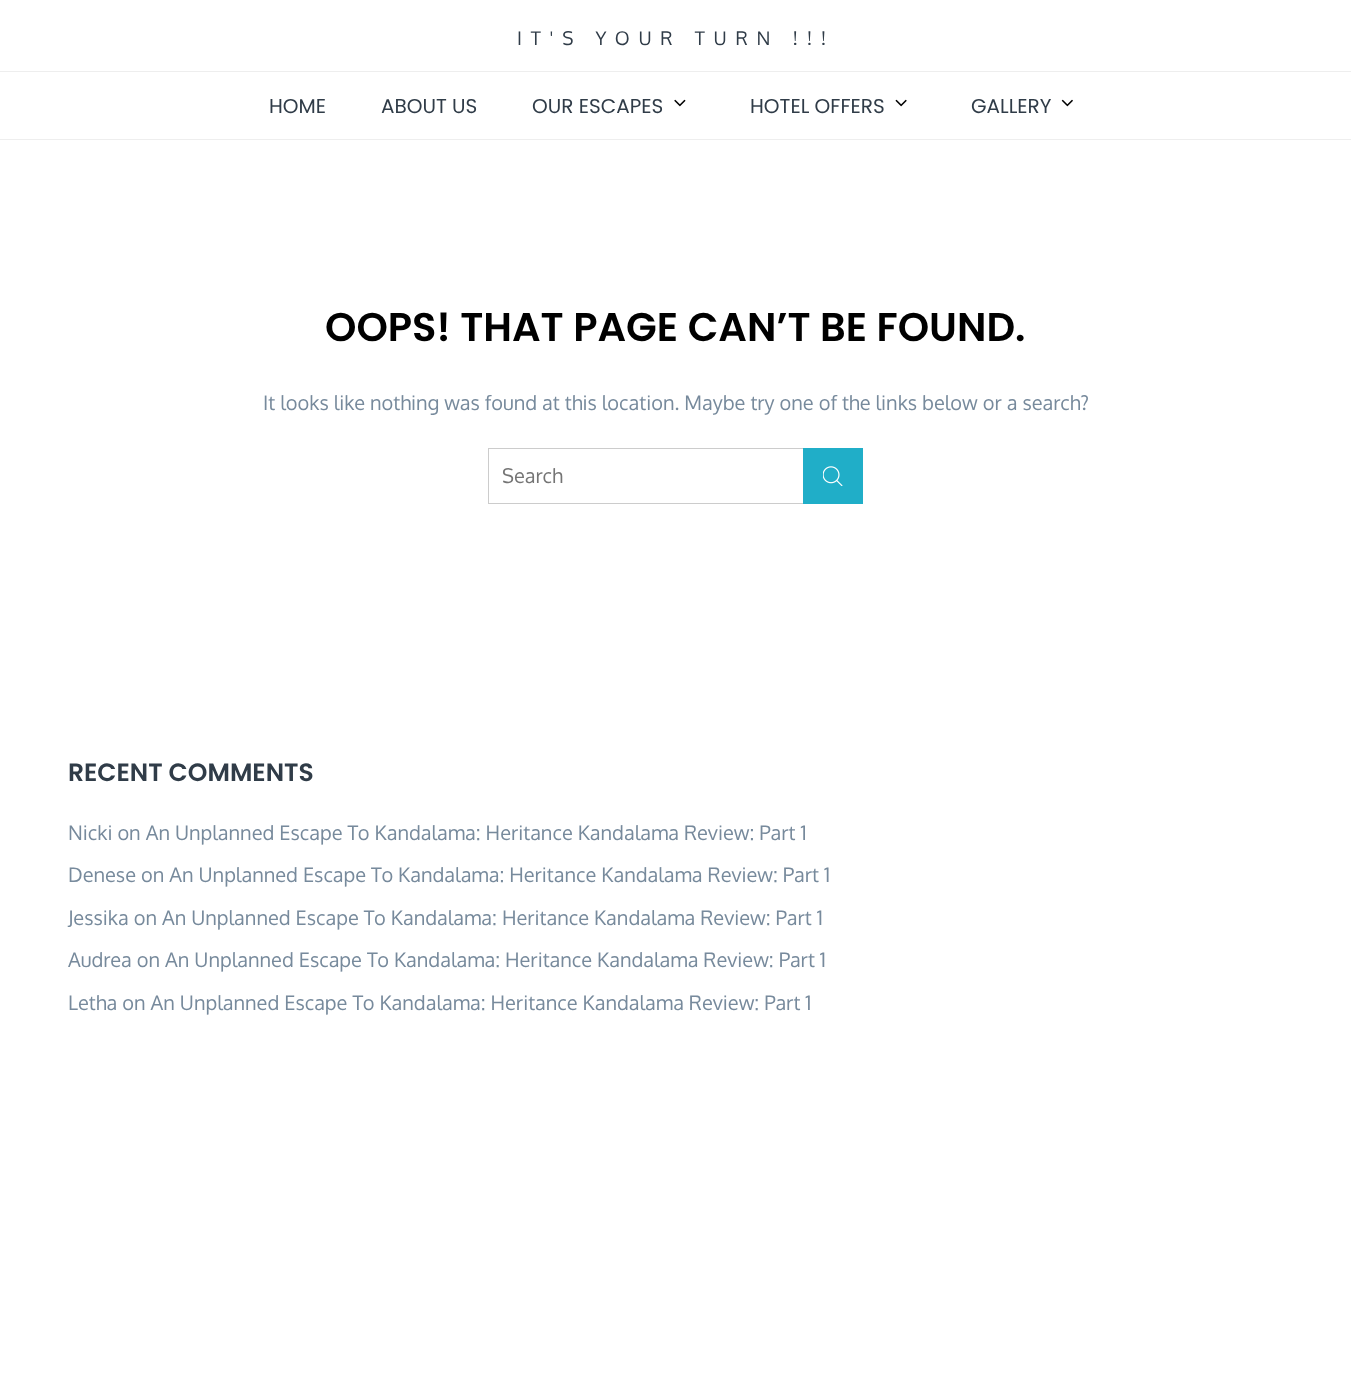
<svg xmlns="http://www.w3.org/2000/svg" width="1351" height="1376">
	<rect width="100%" height="100%" fill="#FFFFFF" />
	<text x="517" y="45" font-family="Oxygen" font-size="18.75" letter-spacing="8.75" fill="#303C48">IT'S YOUR TURN !!!</text>
	<rect x="0" y="71" width="1351" height="1" fill="#EEEEEE" />
	<rect x="0" y="139" width="1351" height="1" fill="#EEEEEE" />
	<g font-family="Poppins" font-size="20" fill="#303C48">
		<text x="269" y="113">HOME</text>
		<text x="381" y="113">ABOUT US</text>
		<text x="532" y="113">OUR ESCAPES</text>
	</g>
	<image x="674" y="99" width="12" height="8" href="assets/img1.png" />
	<text x="750" y="113" font-family="Poppins" font-size="20" fill="#303C48">HOTEL OFFERS</text>
	<image x="895" y="99" width="12" height="8" href="assets/img2.png" />
	<text x="971" y="113" font-family="Poppins" font-size="20" fill="#303C48">GALLERY</text>
	<image x="1061" y="99" width="12" height="8" href="assets/img3.png" />
	<text x="325" y="341" font-family="Poppins" font-size="40" font-weight="600" fill="#000000">OOPS! THAT PAGE CAN’T BE FOUND.</text>
	<text x="263" y="410" font-family="Oxygen" font-size="20" fill="#778A9C">It looks like nothing was found at this location. Maybe try one of the links below or a search?</text>
	<rect x="488.5" y="448.5" width="374" height="55" fill="none" stroke="#CCCCCC" />
	<text x="502" y="483" font-family="Oxygen" font-size="20" fill="#757575">Search</text>
	<rect x="803" y="448" width="60" height="56" fill="#20AEC8" />
	<image x="823" y="466" width="20" height="20" href="assets/img4.png" />
	<text x="68" y="781" font-family="Poppins" font-size="25" font-weight="600" fill="#303C48">RECENT COMMENTS</text>
	<g font-family="Oxygen" font-size="20" fill="#778A9C">
		<text x="68" y="840">Nicki on An Unplanned Escape To Kandalama: Heritance Kandalama Review: Part 1</text>
		<text x="68" y="882">Denese on An Unplanned Escape To Kandalama: Heritance Kandalama Review: Part 1</text>
		<text x="68" y="925">Jessika on An Unplanned Escape To Kandalama: Heritance Kandalama Review: Part 1</text>
		<text x="68" y="967">Audrea on An Unplanned Escape To Kandalama: Heritance Kandalama Review: Part 1</text>
		<text x="68" y="1010">Letha on An Unplanned Escape To Kandalama: Heritance Kandalama Review: Part 1</text>
	</g>
</svg>
